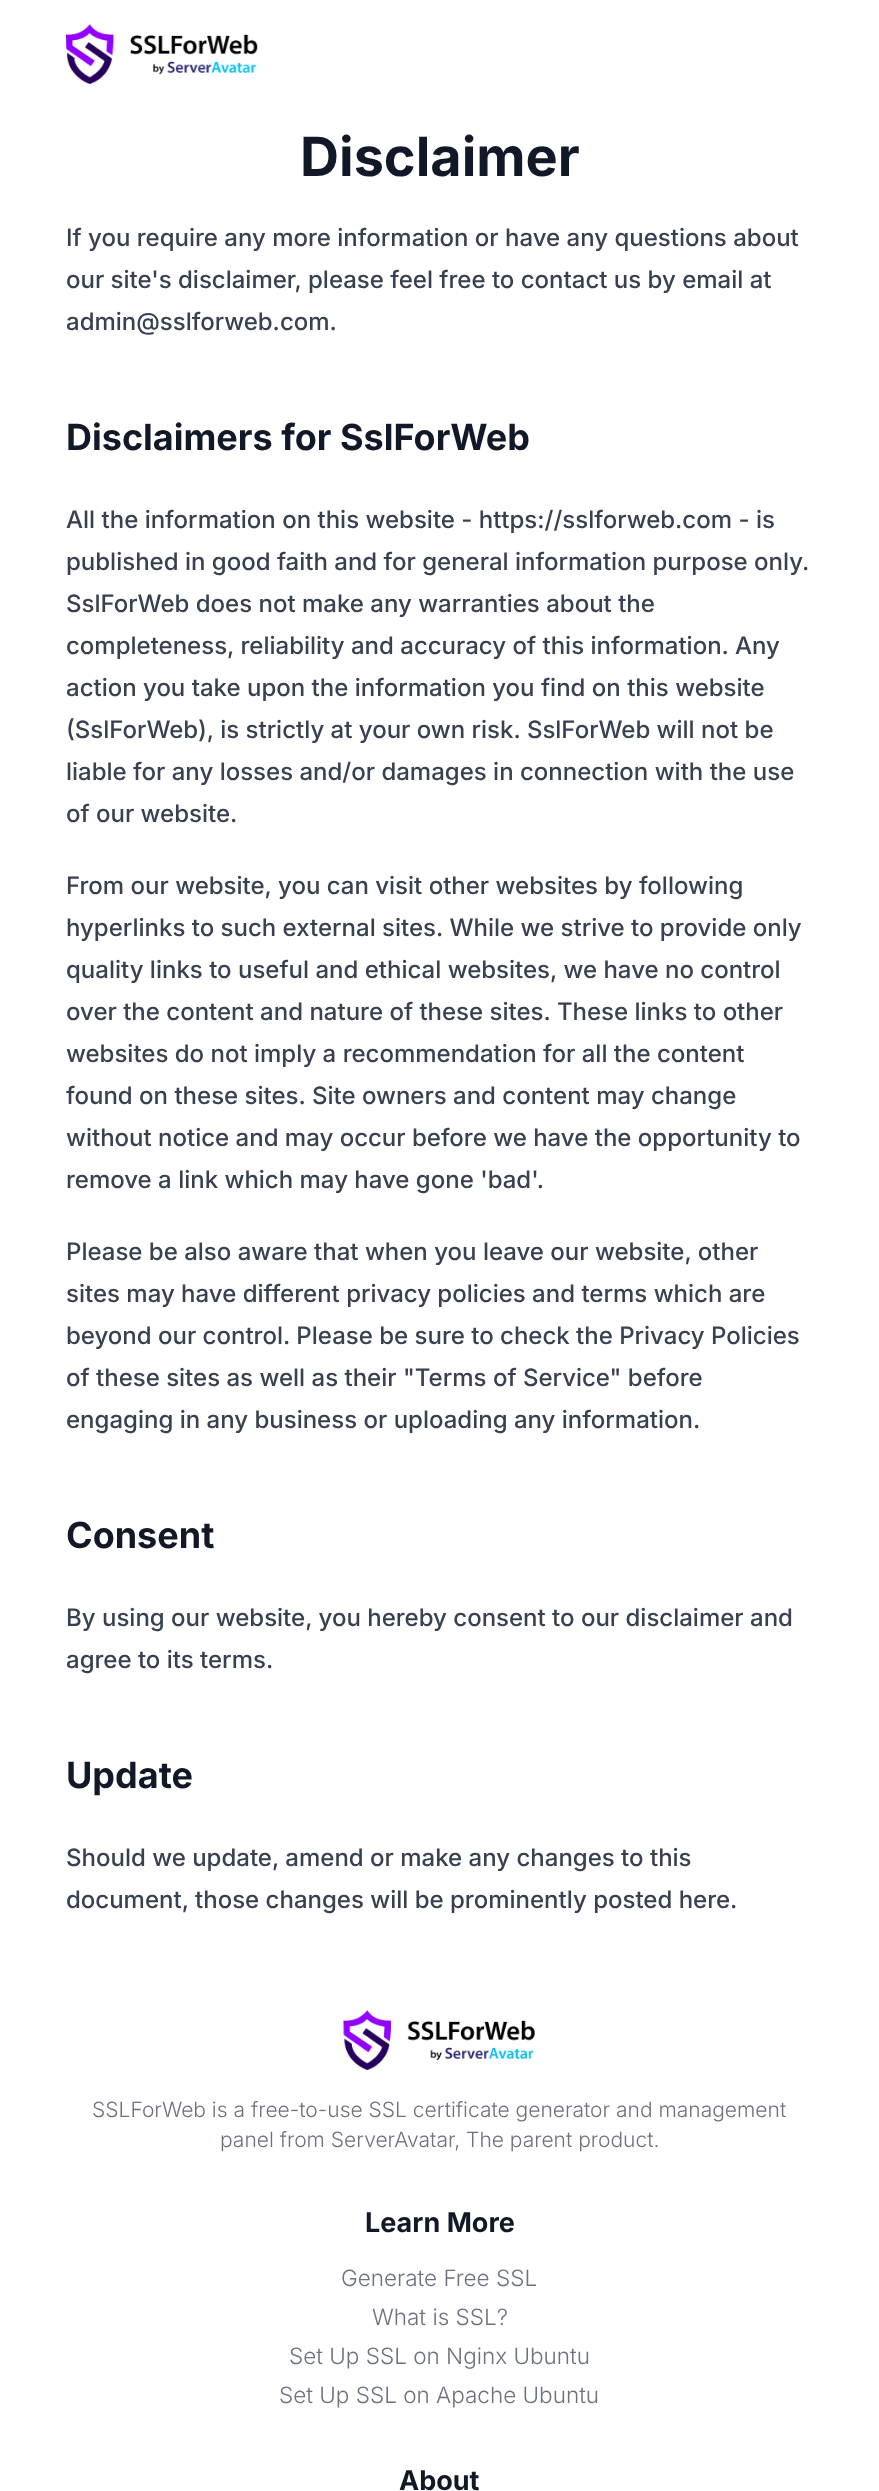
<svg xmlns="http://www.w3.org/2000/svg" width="879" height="2491">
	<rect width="100%" height="100%" fill="#FFFFFF" />
	<image x="66" y="24" width="192" height="60" href="assets/img1.png" />
	<text x="300" y="176" font-family="Inter" font-size="54" font-weight="700" fill="#111827">Disclaimer</text>
	<g font-family="Inter" font-size="24" font-weight="500" fill="#374151">
		<text x="66" y="246">If you require any more information or have any questions about</text>
		<text x="66" y="288">our site's disclaimer, please feel free to contact us by email at</text>
		<text x="66" y="330">admin@sslforweb.com.</text>
	</g>
	<text x="66" y="450" font-family="Inter" font-size="36" font-weight="700" fill="#111827">Disclaimers for SslForWeb</text>
	<g font-family="Inter" font-size="24" font-weight="500" fill="#374151">
		<text x="66" y="528">All the information on this website - https://sslforweb.com - is</text>
		<text x="66" y="570">published in good faith and for general information purpose only.</text>
		<text x="66" y="612">SslForWeb does not make any warranties about the</text>
		<text x="66" y="654">completeness, reliability and accuracy of this information. Any</text>
		<text x="66" y="696">action you take upon the information you find on this website</text>
		<text x="66" y="738">(SslForWeb), is strictly at your own risk. SslForWeb will not be</text>
		<text x="66" y="780">liable for any losses and/or damages in connection with the use</text>
		<text x="66" y="822">of our website.</text>
		<text x="66" y="894">From our website, you can visit other websites by following</text>
		<text x="66" y="936">hyperlinks to such external sites. While we strive to provide only</text>
		<text x="66" y="978">quality links to useful and ethical websites, we have no control</text>
		<text x="66" y="1020">over the content and nature of these sites. These links to other</text>
		<text x="66" y="1062">websites do not imply a recommendation for all the content</text>
		<text x="66" y="1104">found on these sites. Site owners and content may change</text>
		<text x="66" y="1146">without notice and may occur before we have the opportunity to</text>
		<text x="66" y="1188">remove a link which may have gone 'bad'.</text>
		<text x="66" y="1260">Please be also aware that when you leave our website, other</text>
		<text x="66" y="1302">sites may have different privacy policies and terms which are</text>
		<text x="66" y="1344">beyond our control. Please be sure to check the Privacy Policies</text>
		<text x="66" y="1386">of these sites as well as their "Terms of Service" before</text>
		<text x="66" y="1428">engaging in any business or uploading any information.</text>
	</g>
	<text x="66" y="1548" font-family="Inter" font-size="36" font-weight="700" fill="#111827">Consent</text>
	<g font-family="Inter" font-size="24" font-weight="500" fill="#374151">
		<text x="66" y="1626">By using our website, you hereby consent to our disclaimer and</text>
		<text x="66" y="1668">agree to its terms.</text>
	</g>
	<text x="66" y="1788" font-family="Inter" font-size="36" font-weight="700" fill="#111827">Update</text>
	<g font-family="Inter" font-size="24" font-weight="500" fill="#374151">
		<text x="66" y="1866">Should we update, amend or make any changes to this</text>
		<text x="66" y="1908">document, those changes will be prominently posted here.</text>
	</g>
	<image x="343" y="2010" width="192" height="60" href="assets/img2.png" />
	<g font-family="Inter" font-size="21" font-weight="300" fill="#6B7280">
		<text x="92" y="2117">SSLForWeb is a free-to-use SSL certificate generator and management</text>
		<text x="220" y="2147">panel from ServerAvatar, The parent product.</text>
	</g>
	<text x="365" y="2232" font-family="Inter" font-size="27" font-weight="700" fill="#111827">Learn More</text>
	<g font-family="Inter" font-size="22.5" font-weight="300" fill="#6B7280">
		<text x="341" y="2286">Generate Free SSL</text>
		<text x="372" y="2325">What is SSL?</text>
		<text x="289" y="2364">Set Up SSL on Nginx Ubuntu</text>
		<text x="279" y="2403">Set Up SSL on Apache Ubuntu</text>
	</g>
	<text x="399" y="2490" font-family="Inter" font-size="27" font-weight="700" fill="#111827">About</text>
</svg>
